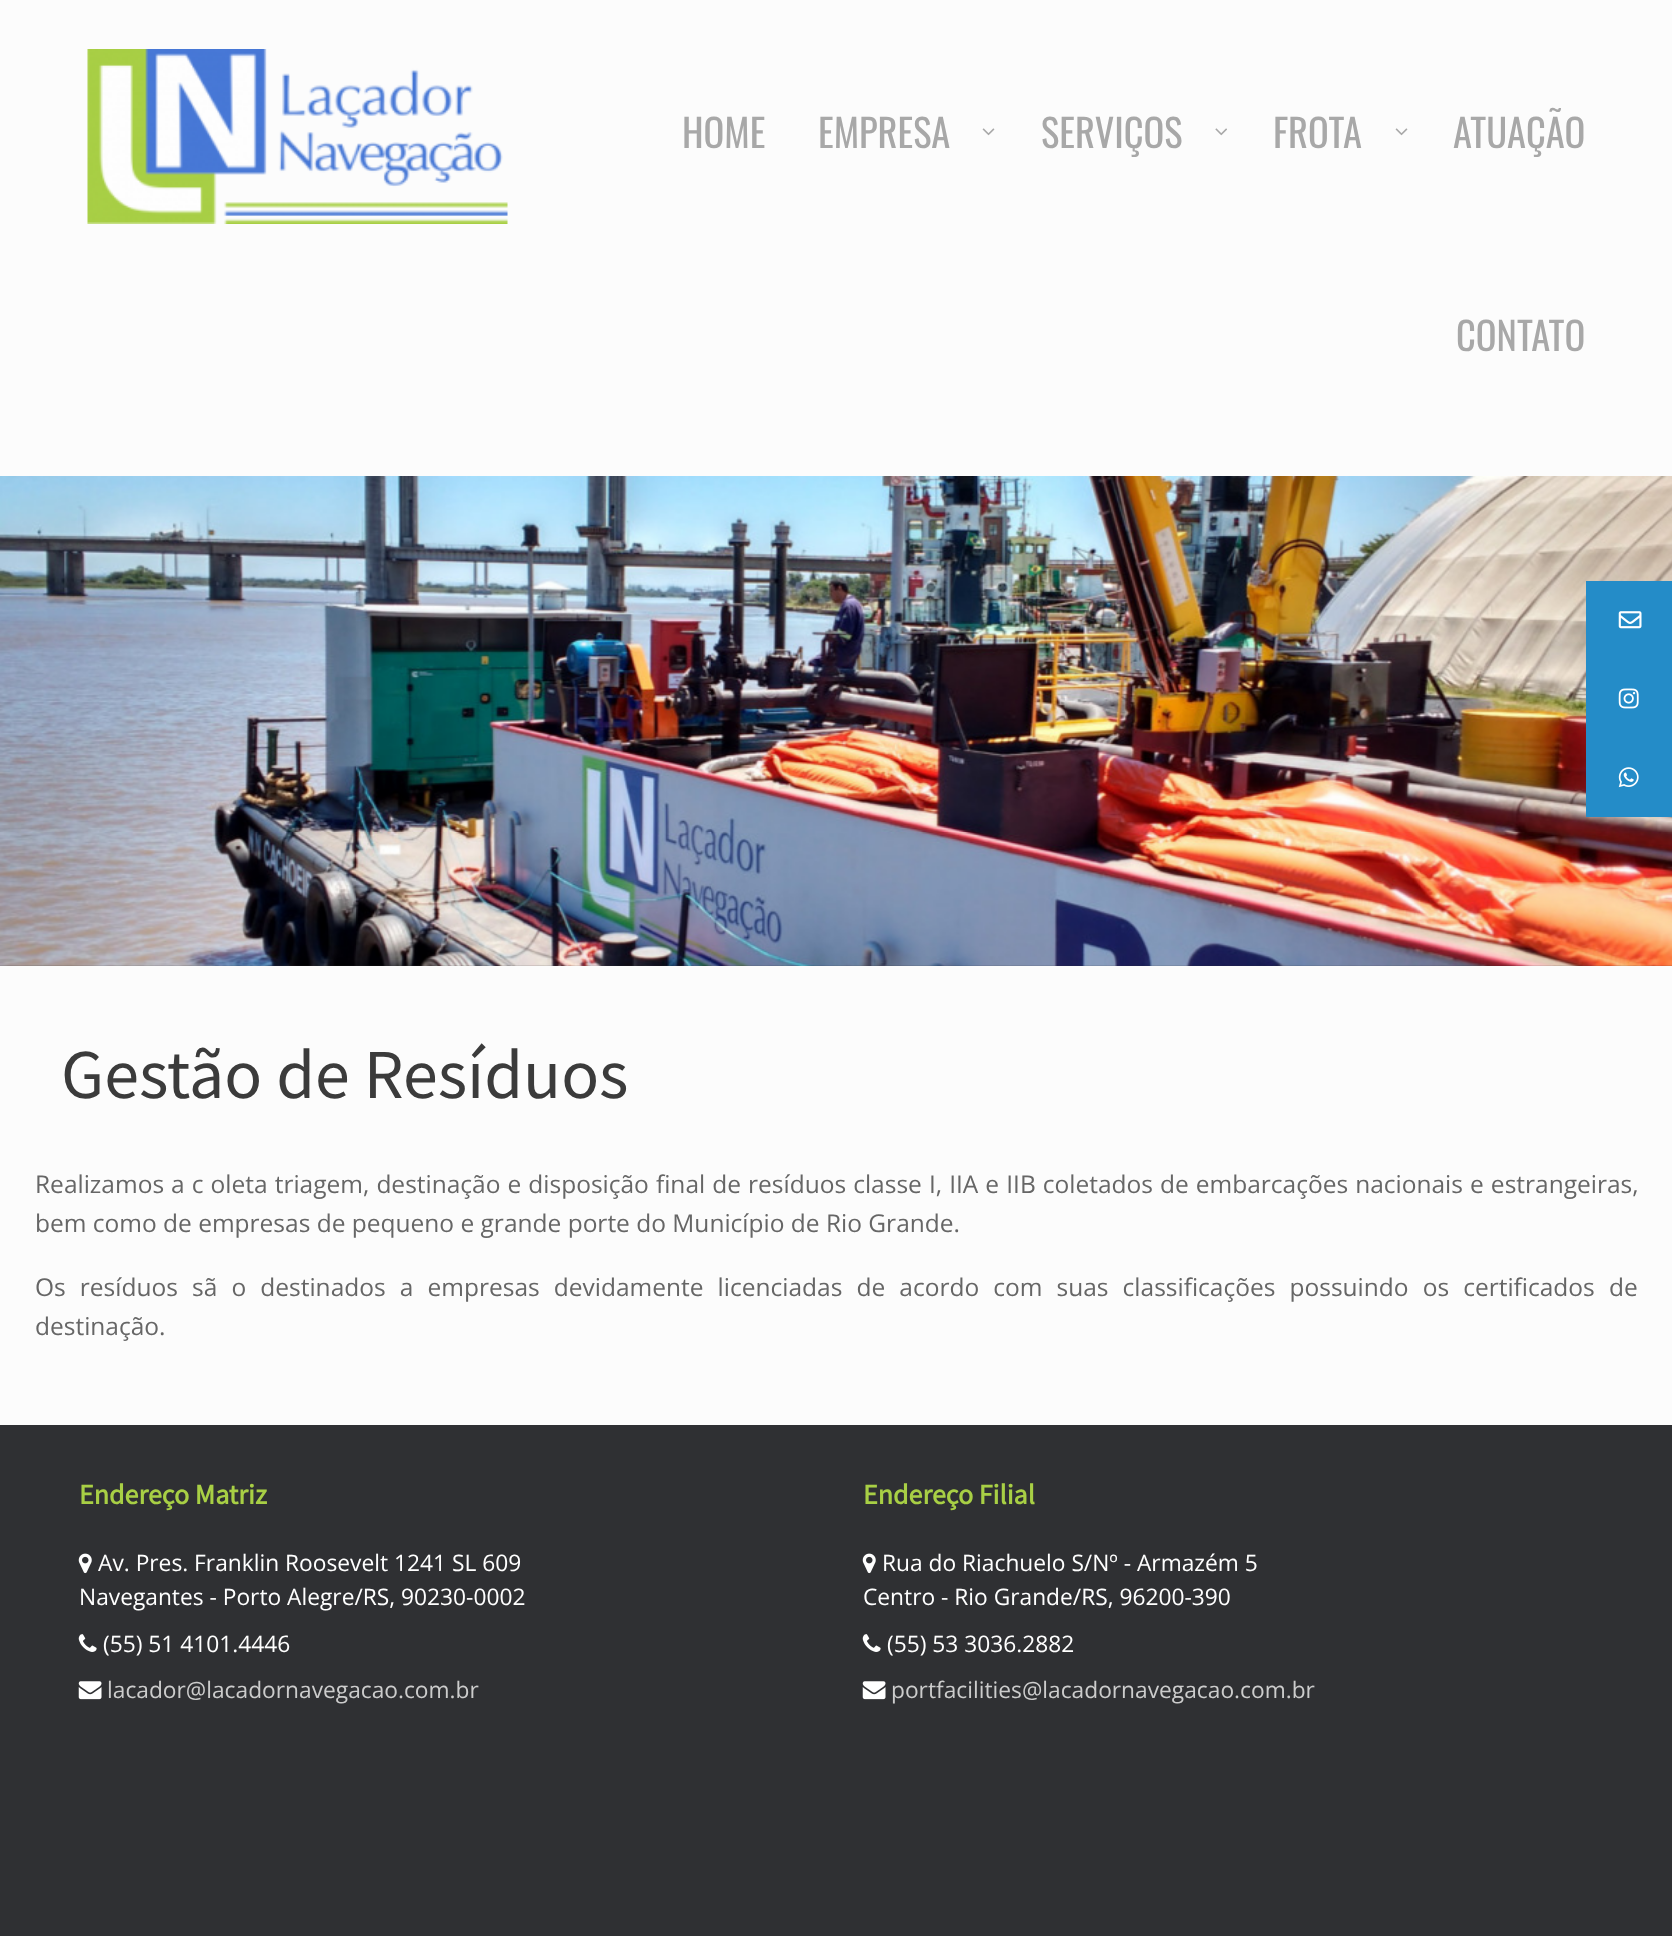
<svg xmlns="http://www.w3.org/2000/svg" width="1672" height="1936">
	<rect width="100%" height="100%" fill="#2F3033" />
	<rect x="0" y="0" width="1672" height="476" fill="#FCFCFC" />
	<image x="87" y="49" width="421" height="175" href="assets/img1.png" />
	<g font-family="Oswald" font-size="38.5" fill="#A8A8A8">
		<text x="682" y="148">HOME</text>
		<text x="818" y="148">EMPRESA</text>
	</g>
	<image x="982" y="128" width="13" height="8" href="assets/img2.png" />
	<text x="1041" y="148" font-family="Oswald" font-size="38.5" fill="#A8A8A8">SERVIÇOS</text>
	<image x="1215" y="128" width="12" height="8" href="assets/img3.png" />
	<text x="1273" y="148" font-family="Oswald" font-size="38.5" fill="#A8A8A8">FROTA</text>
	<image x="1395" y="128" width="13" height="8" href="assets/img2.png" />
	<g font-family="Oswald" font-size="38.5" fill="#A8A8A8">
		<text x="1453" y="148">ATUAÇÃO</text>
		<text x="1456" y="351">CONTATO</text>
	</g>
	<image x="0" y="476" width="1672" height="490" href="assets/img4.png" />
	<rect x="0" y="966" width="1672" height="459" fill="#FCFCFC" />
	<text x="61" y="1098" font-family="Source Sans Pro" font-size="70" fill="#3B3B3B">Gestão de Resíduos</text>
	<g font-family="Open Sans" font-size="24.5" fill="#666666">
		<text x="35" y="1193" word-spacing="0.7">Realizamos a c oleta triagem, destinação e disposição final de resíduos classe I, IIA e IIB coletados de embarcações nacionais e estrangeiras,</text>
		<text x="35" y="1232">bem como de empresas de pequeno e grande porte do Município de Rio Grande.</text>
		<text x="35" y="1296" word-spacing="7.75">Os resíduos sã o destinados a empresas devidamente licenciadas de acordo com suas classificações possuindo os certificados de</text>
		<text x="35" y="1335">destinação.</text>
	</g>
	<text x="79" y="1504" font-family="Source Sans Pro" font-size="28" font-weight="700" fill="#A8CF45">Endereço Matriz</text>
	<image x="78" y="1553" width="14" height="21" href="assets/img5.png" />
	<g font-family="Open Sans" font-size="22.75" fill="#FFFFFF">
		<text x="98" y="1571">Av. Pres. Franklin Roosevelt 1241 SL 609</text>
		<text x="79" y="1605">Navegantes - Porto Alegre/RS, 90230-0002</text>
	</g>
	<image x="78" y="1634" width="19" height="18" href="assets/img6.png" />
	<text x="103" y="1652" font-family="Open Sans" font-size="22.75" fill="#FFFFFF">(55) 51 4101.4446</text>
	<image x="78" y="1681" width="24" height="19" href="assets/img7.png" />
	<text x="107" y="1698" font-family="Open Sans" font-size="22.75" fill="#CCCCCC">lacador@lacadornavegacao.com.br</text>
	<text x="863" y="1504" font-family="Source Sans Pro" font-size="28" font-weight="700" fill="#A8CF45">Endereço Filial</text>
	<image x="862" y="1553" width="14" height="21" href="assets/img5.png" />
	<g font-family="Open Sans" font-size="22.75" fill="#FFFFFF">
		<text x="882" y="1571">Rua do Riachuelo S/Nº - Armazém 5</text>
		<text x="863" y="1605">Centro - Rio Grande/RS, 96200-390</text>
	</g>
	<image x="862" y="1634" width="19" height="18" href="assets/img6.png" />
	<text x="887" y="1652" font-family="Open Sans" font-size="22.75" fill="#FFFFFF">(55) 53 3036.2882</text>
	<image x="862" y="1681" width="24" height="19" href="assets/img7.png" />
	<text x="891" y="1698" font-family="Open Sans" font-size="22.75" fill="#CCCCCC">portfacilities@lacadornavegacao.com.br</text>
	<rect x="1586" y="581" width="86" height="236" fill="#248CC8" />
	<image x="1618" y="611" width="24" height="18" href="assets/img8.png" />
	<image x="1618" y="688" width="21" height="21" href="assets/img9.png" />
	<image x="1618" y="767" width="21" height="21" href="assets/img10.png" />
</svg>
